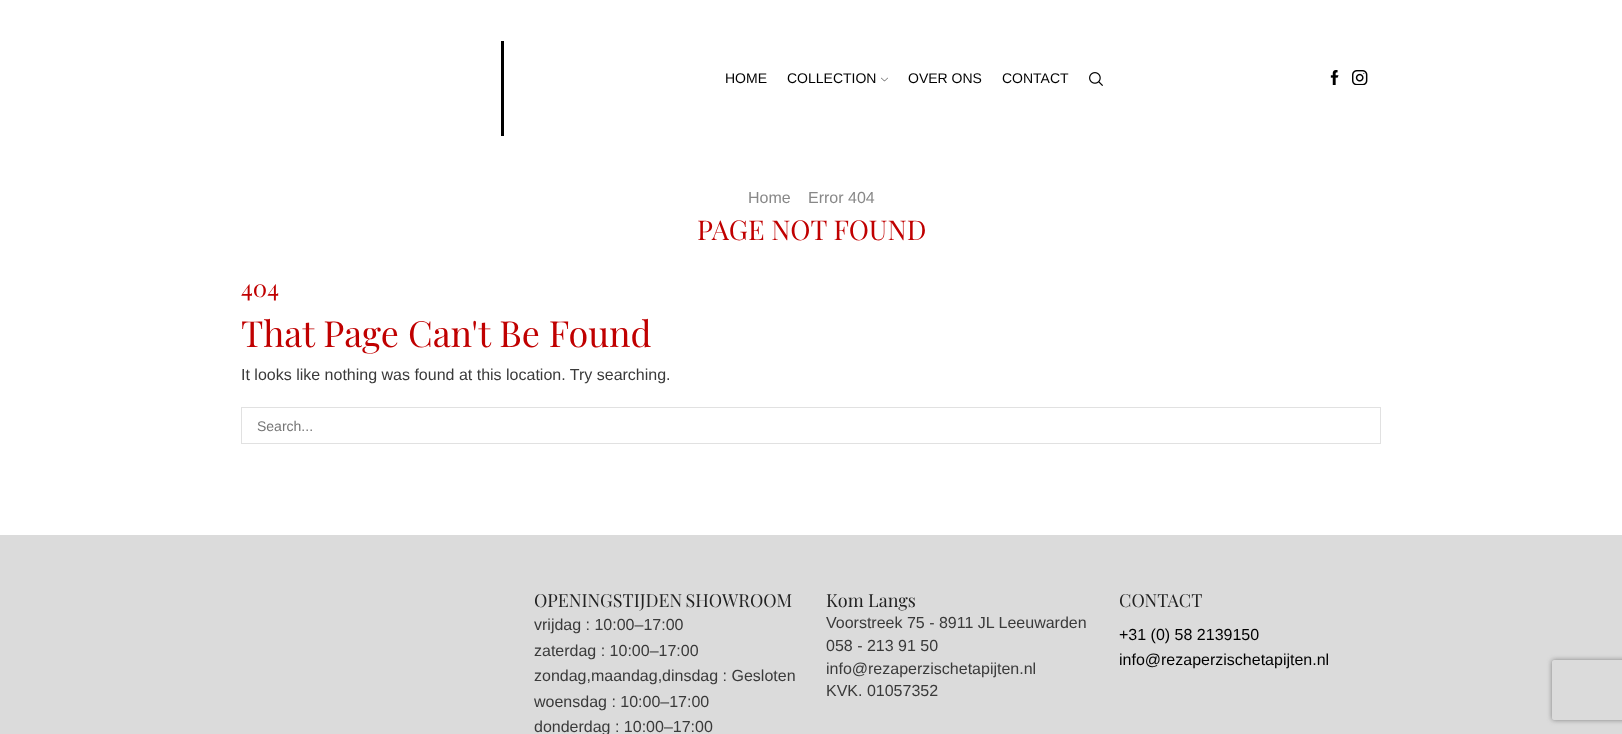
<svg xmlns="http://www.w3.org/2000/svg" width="1622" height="734">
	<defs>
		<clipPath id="clip1"><path d="M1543 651H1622V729H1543ZM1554 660H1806C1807 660 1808 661 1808 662V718C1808 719 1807 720 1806 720H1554C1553 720 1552 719 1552 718V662C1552 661 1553 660 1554 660Z" clip-rule="evenodd" /></clipPath>
	</defs>
	<rect width="100%" height="100%" fill="#FFFFFF" />
	<rect x="501" y="41" width="3" height="95" fill="#000000" />
	<g font-family="Liberation Sans" font-size="14" fill="#000000">
		<text x="725" y="83">HOME</text>
		<text x="787" y="83">COLLECTION</text>
	</g>
	<image x="881" y="77" width="7" height="5" href="assets/img1.png" />
	<g font-family="Liberation Sans" font-size="14" fill="#000000">
		<text x="908" y="83">OVER ONS</text>
		<text x="1002" y="83">CONTACT</text>
	</g>
	<image x="1089" y="72" width="14" height="14" href="assets/img2.png" />
	<image x="1330" y="70" width="9" height="15" href="assets/img3.png" />
	<image x="1352" y="70" width="16" height="15" href="assets/img4.png" />
	<g font-family="Liberation Sans" font-size="16" fill="#888888">
		<text x="748" y="203">Home</text>
		<text x="808" y="203">Error 404</text>
	</g>
	<text x="697" y="240" font-family="Playfair Display" font-size="27.25" fill="#C00000">PAGE NOT FOUND</text>
	<text x="241" y="297" font-family="Playfair Display" font-size="24" fill="#C00000">404</text>
	<text x="241" y="347" font-family="Playfair Display" font-size="36" fill="#C00000">That Page Can't Be Found</text>
	<text x="241" y="380" font-family="Liberation Sans" font-size="16" fill="#3A3A3A">It looks like nothing was found at this location. Try searching.</text>
	<rect x="241.5" y="407.5" width="1139" height="36" fill="none" stroke="#E1E1E1" />
	<text x="257" y="431" font-family="Liberation Sans" font-size="14" fill="#757575">Search...</text>
	<rect x="0" y="535" width="1622" height="199" fill="#DBDBDB" />
	<text x="534" y="607" word-spacing="-1" font-family="Playfair Display" font-size="18" fill="#222222">OPENINGSTIJDEN SHOWROOM</text>
	<g font-family="Liberation Sans" font-size="16" fill="#3A3A3A">
		<text x="534" y="630">vrijdag : 10:00–17:00</text>
		<text x="534" y="656">zaterdag : 10:00–17:00</text>
		<text x="534" y="681">zondag,maandag,dinsdag : Gesloten</text>
		<text x="534" y="707">woensdag : 10:00–17:00</text>
		<text x="534" y="732">donderdag : 10:00–17:00</text>
	</g>
	<text x="826" y="607" font-family="Playfair Display" font-size="18" fill="#222222">Kom Langs</text>
	<g font-family="Liberation Sans" font-size="16" fill="#3A3A3A">
		<text x="826" y="628">Voorstreek 75 - 8911 JL Leeuwarden</text>
		<text x="826" y="651">058 - 213 91 50</text>
		<text x="826" y="674">info@rezaperzischetapijten.nl</text>
		<text x="826" y="696">KVK. 01057352</text>
	</g>
	<text x="1119" y="607" font-family="Playfair Display" font-size="18" fill="#222222">CONTACT</text>
	<g font-family="Liberation Sans" font-size="16" fill="#000000">
		<text x="1119" y="640">+31 (0) 58 2139150</text>
		<text x="1119" y="665">info@rezaperzischetapijten.nl</text>
	</g>
	<g clip-path="url(#clip1)">
		<rect x="1552" y="660" width="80" height="60" rx="2" fill="#808080" filter="blur(2.5px)" />
	</g>
</svg>
